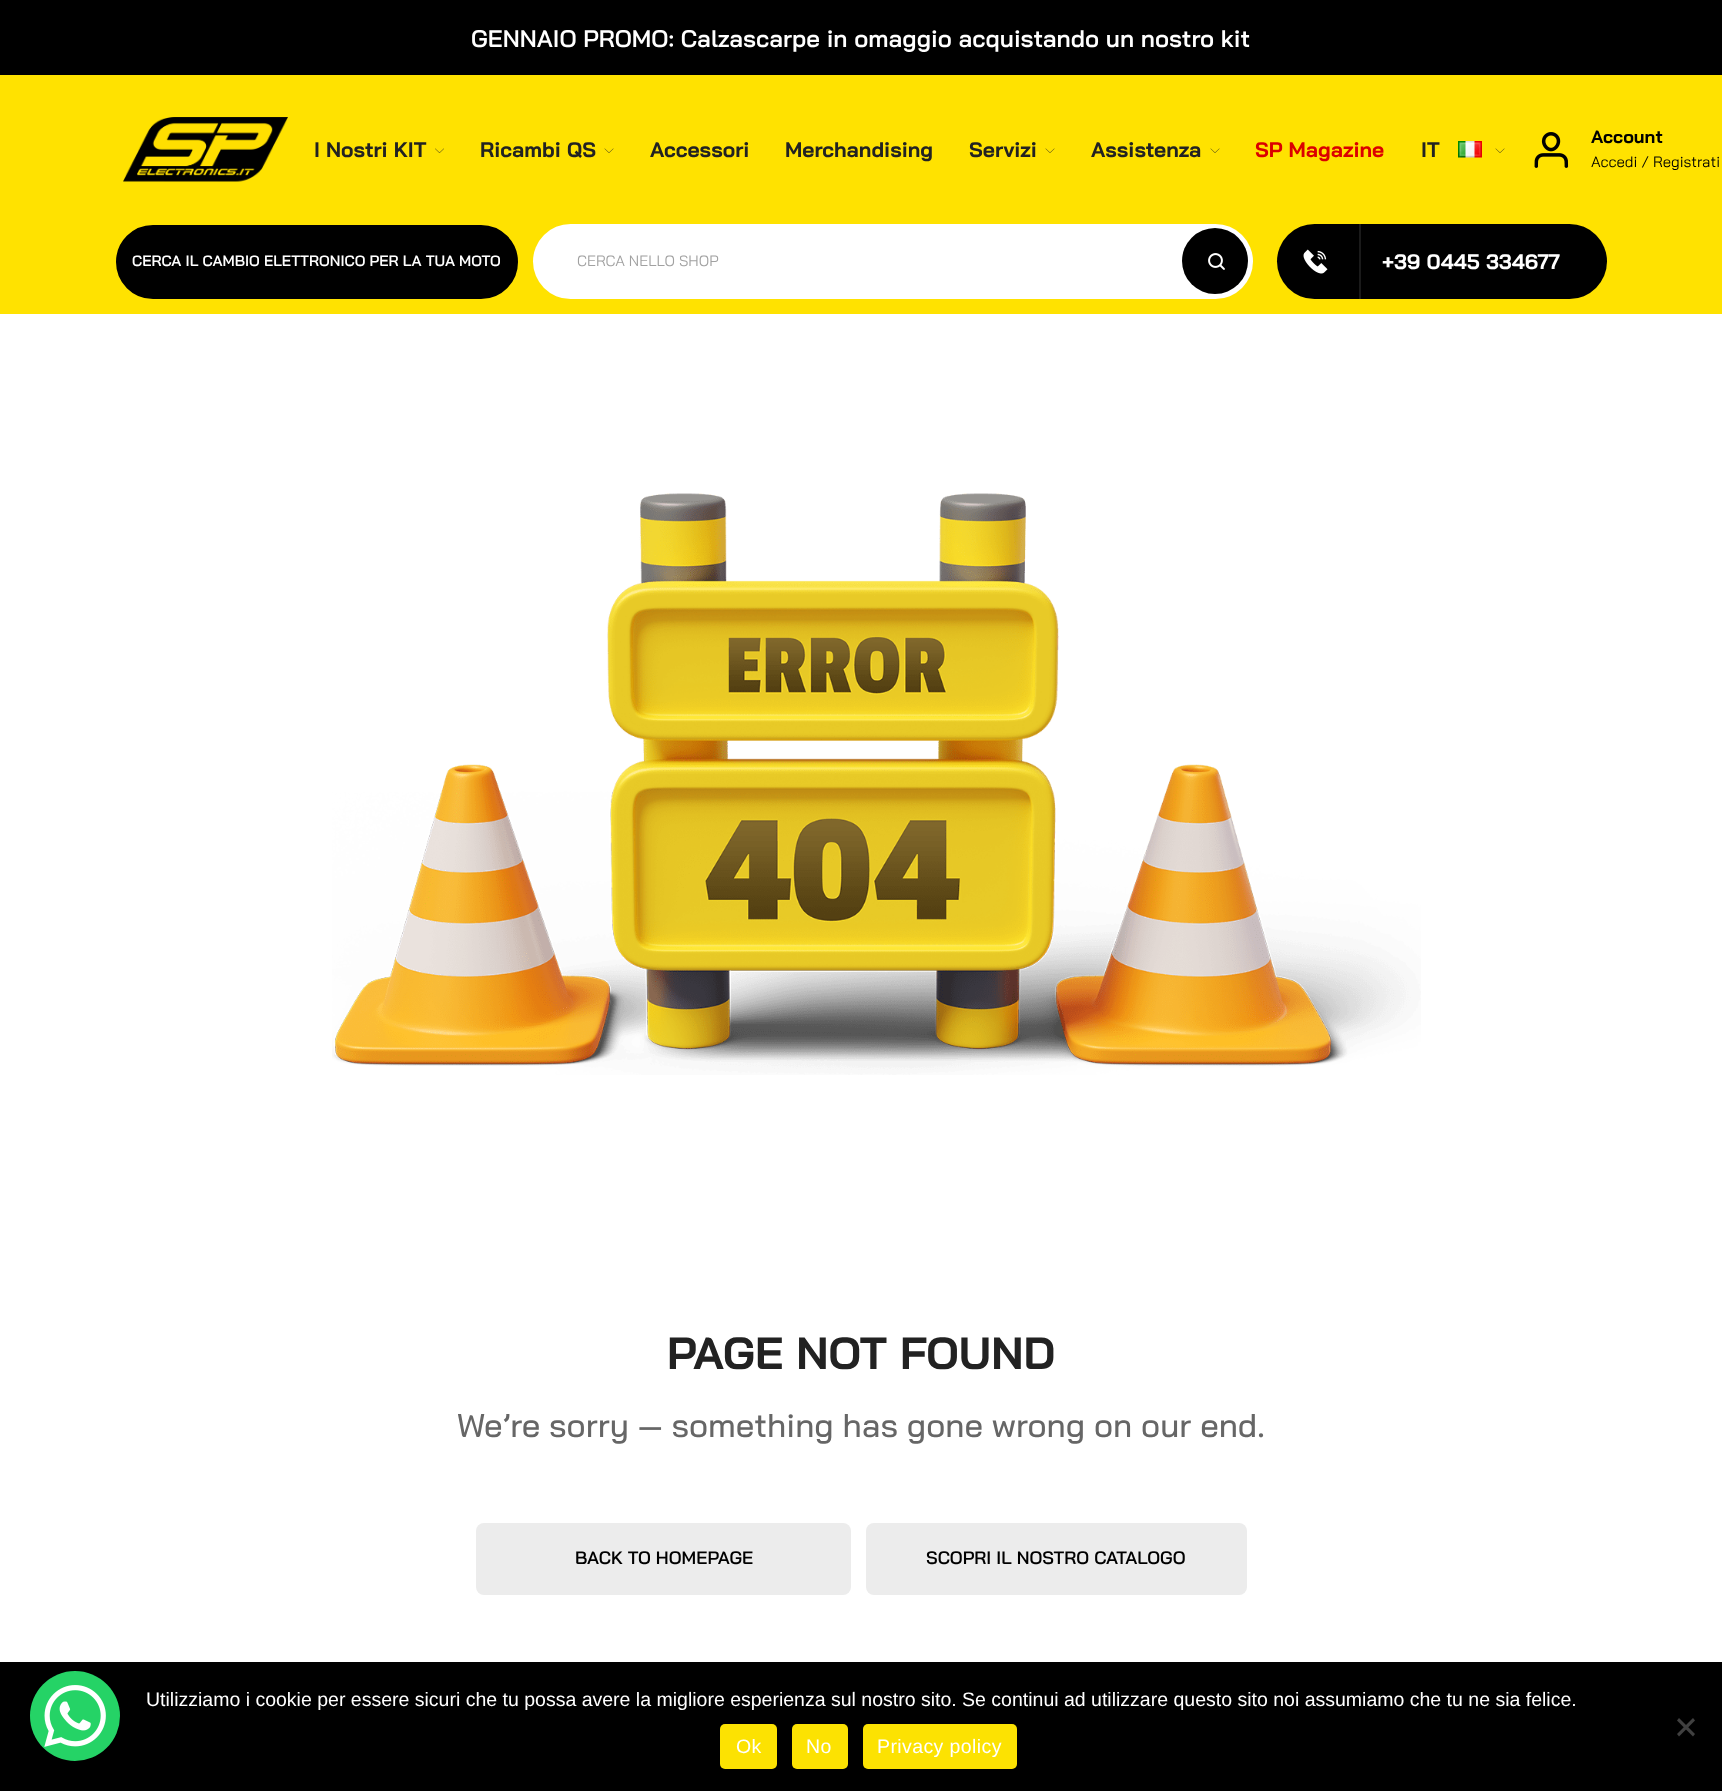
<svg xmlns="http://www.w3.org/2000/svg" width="1722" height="1791">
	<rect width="100%" height="100%" fill="#FFFFFF" />
	<rect x="0" y="0" width="1722" height="75" fill="#000000" />
	<text x="471" y="47" font-family="Bai Jamjuree" font-size="24" font-weight="600" fill="#FFFFFF">GENNAIO PROMO: Calzascarpe in omaggio acquistando un nostro kit</text>
	<rect x="0" y="75" width="1722" height="239" fill="#FFE200" />
	<image x="123" y="117" width="165" height="65" href="assets/img1.png" />
	<text x="314" y="157" font-family="Bai Jamjuree" font-size="21" font-weight="700" fill="#222222">I Nostri KIT</text>
	<image x="435" y="148" width="9" height="5" href="assets/img2.png" />
	<text x="480" y="157" font-family="Bai Jamjuree" font-size="21" font-weight="700" fill="#222222">Ricambi QS</text>
	<image x="604" y="148" width="10" height="5" href="assets/img3.png" />
	<g font-family="Bai Jamjuree" font-size="21" font-weight="700" fill="#222222">
		<text x="650" y="157">Accessori</text>
		<text x="785" y="157">Merchandising</text>
		<text x="969" y="157">Servizi</text>
	</g>
	<image x="1045" y="148" width="10" height="5" href="assets/img3.png" />
	<text x="1091" y="157" font-family="Bai Jamjuree" font-size="21" font-weight="700" fill="#222222">Assistenza</text>
	<image x="1210" y="148" width="10" height="5" href="assets/img3.png" />
	<text x="1255" y="157" font-family="Bai Jamjuree" font-size="21" font-weight="700" fill="#DB0000">SP Magazine</text>
	<text x="1421" y="157" font-family="Bai Jamjuree" font-size="21" font-weight="700" fill="#222222">IT</text>
	<image x="1495" y="148" width="10" height="5" href="assets/img3.png" />
	<image x="1458" y="141" width="24" height="17" href="assets/img4.png" />
	<image x="1534" y="132" width="35" height="36" href="assets/img5.png" />
	<text x="1591" y="143" font-family="Bai Jamjuree" font-size="18" font-weight="700" fill="#000000">Account</text>
	<text x="1591" y="167" font-family="Bai Jamjuree" font-size="15" fill="#000000">Accedi / Registrati</text>
	<rect x="117" y="226" width="400" height="72" rx="36" fill="#000000" stroke="#000000" stroke-width="2" />
	<text x="132" y="266" font-family="Bai Jamjuree" font-size="15" font-weight="600" fill="#FFFFFF">CERCA IL CAMBIO ELETTRONICO PER LA TUA MOTO</text>
	<rect x="533" y="224" width="720" height="75" rx="37.5" fill="#FFFFFF" />
	<text x="577" y="266" font-family="Bai Jamjuree" font-size="15" fill="#A1A1A1">CERCA NELLO SHOP</text>
	<circle cx="1215" cy="261" r="33" fill="#000000" />
	<image x="1208" y="253" width="17" height="17" href="assets/img6.png" />
	<rect x="1277" y="224" width="330" height="75" rx="37.5" fill="#000000" />
	<image x="1303" y="249" width="25" height="25" href="assets/img7.png" />
	<rect x="1359" y="224" width="2" height="75" fill="#1A1A1A" />
	<text x="1382" y="269" font-family="Bai Jamjuree" font-size="21" font-weight="700" fill="#FFFFFF">+39 0445 334677</text>
	<image x="332" y="493" width="1089" height="582" href="assets/img8.png" />
	<text x="667" y="1369" font-family="Bai Jamjuree" font-size="45" font-weight="700" fill="#222222">PAGE NOT FOUND</text>
	<text x="457" y="1437" font-family="Bai Jamjuree" font-size="33" font-weight="500" fill="#666666">We’re sorry — something has gone wrong on our end.</text>
	<rect x="476" y="1523" width="375" height="72" rx="8" fill="#ECECEC" />
	<text x="575" y="1564" font-family="Bai Jamjuree" font-size="18" font-weight="600" fill="#000000">BACK TO HOMEPAGE</text>
	<rect x="866" y="1523" width="381" height="72" rx="8" fill="#ECECEC" />
	<text x="926" y="1564" font-family="Bai Jamjuree" font-size="18" font-weight="600" fill="#000000">SCOPRI IL NOSTRO CATALOGO</text>
	<rect x="0" y="1662" width="1722" height="129" fill="#000000" />
	<circle cx="75" cy="1716" r="45" fill="#25D366" />
	<image x="44" y="1685" width="62" height="62" href="assets/img9.png" />
	<text x="146" y="1706" font-family="Liberation Sans" font-size="19.5" fill="#FFFFFF">Utilizziamo i cookie per essere sicuri che tu possa avere la migliore esperienza sul nostro sito. Se continui ad utilizzare questo sito noi assumiamo che tu ne sia felice.</text>
	<path d="M1693 1718L1695 1720.5L1679 1736.5L1677 1734Z" fill="#404040" />
	<path d="M1677 1720.5L1679 1718L1695 1734L1693 1736.5Z" fill="#404040" />
	<rect x="720" y="1724" width="57" height="45" rx="5" fill="#FCE202" />
	<text x="736" y="1753" font-family="Liberation Sans" font-size="19.5" letter-spacing="0.4" fill="#FFFFFF">Ok</text>
	<rect x="792" y="1724" width="56" height="45" rx="5" fill="#FCE202" />
	<text x="806" y="1753" font-family="Liberation Sans" font-size="19.5" letter-spacing="0.4" fill="#FFFFFF">No</text>
	<rect x="863" y="1724" width="154" height="45" rx="5" fill="#FCE202" />
	<text x="877" y="1753" font-family="Liberation Sans" font-size="19.5" letter-spacing="0.4" fill="#FFFFFF">Privacy policy</text>
</svg>
